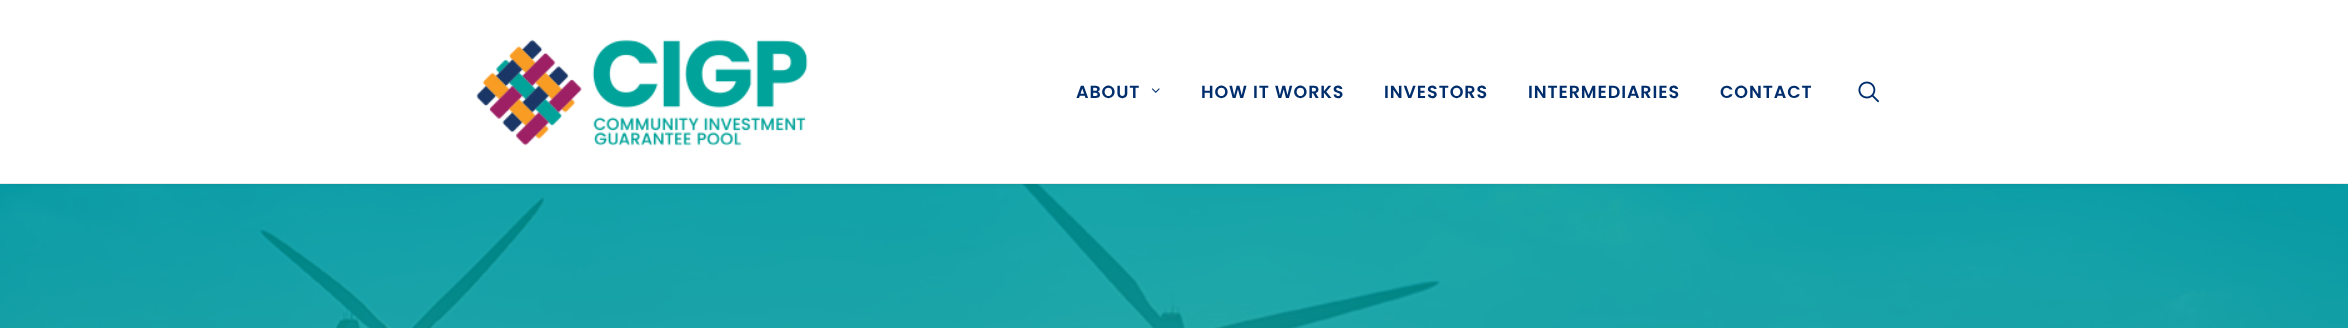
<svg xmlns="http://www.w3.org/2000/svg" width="2348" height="328">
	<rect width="100%" height="100%" fill="#FFFFFF" />
	<image x="0" y="184" width="2348" height="144" href="assets/img4.png" />
	<rect x="10" y="18" width="2330" height="158" fill="#000000" fill-opacity="0.6" filter="blur(6px)" />
	<rect x="0" y="5" width="2348" height="178" fill="#FFFFFF" />
	<rect x="0" y="183" width="2348" height="1" fill="#EAEAEA" />
	<image x="476" y="39" width="332" height="107" href="assets/img1.png" />
	<text x="1076" y="98" font-family="Poppins" font-size="17.5" font-weight="600" letter-spacing="0.9" fill="#002E6D">ABOUT</text>
	<image x="1151" y="88" width="9" height="5" href="assets/img2.png" />
	<g font-family="Poppins" font-size="17.5" font-weight="600" letter-spacing="0.9" fill="#002E6D">
		<text x="1201" y="98">HOW IT WORKS</text>
		<text x="1384" y="98">INVESTORS</text>
		<text x="1528" y="98">INTERMEDIARIES</text>
		<text x="1720" y="98">CONTACT</text>
	</g>
	<image x="1858" y="81" width="21" height="22" href="assets/img3.png" />
</svg>
